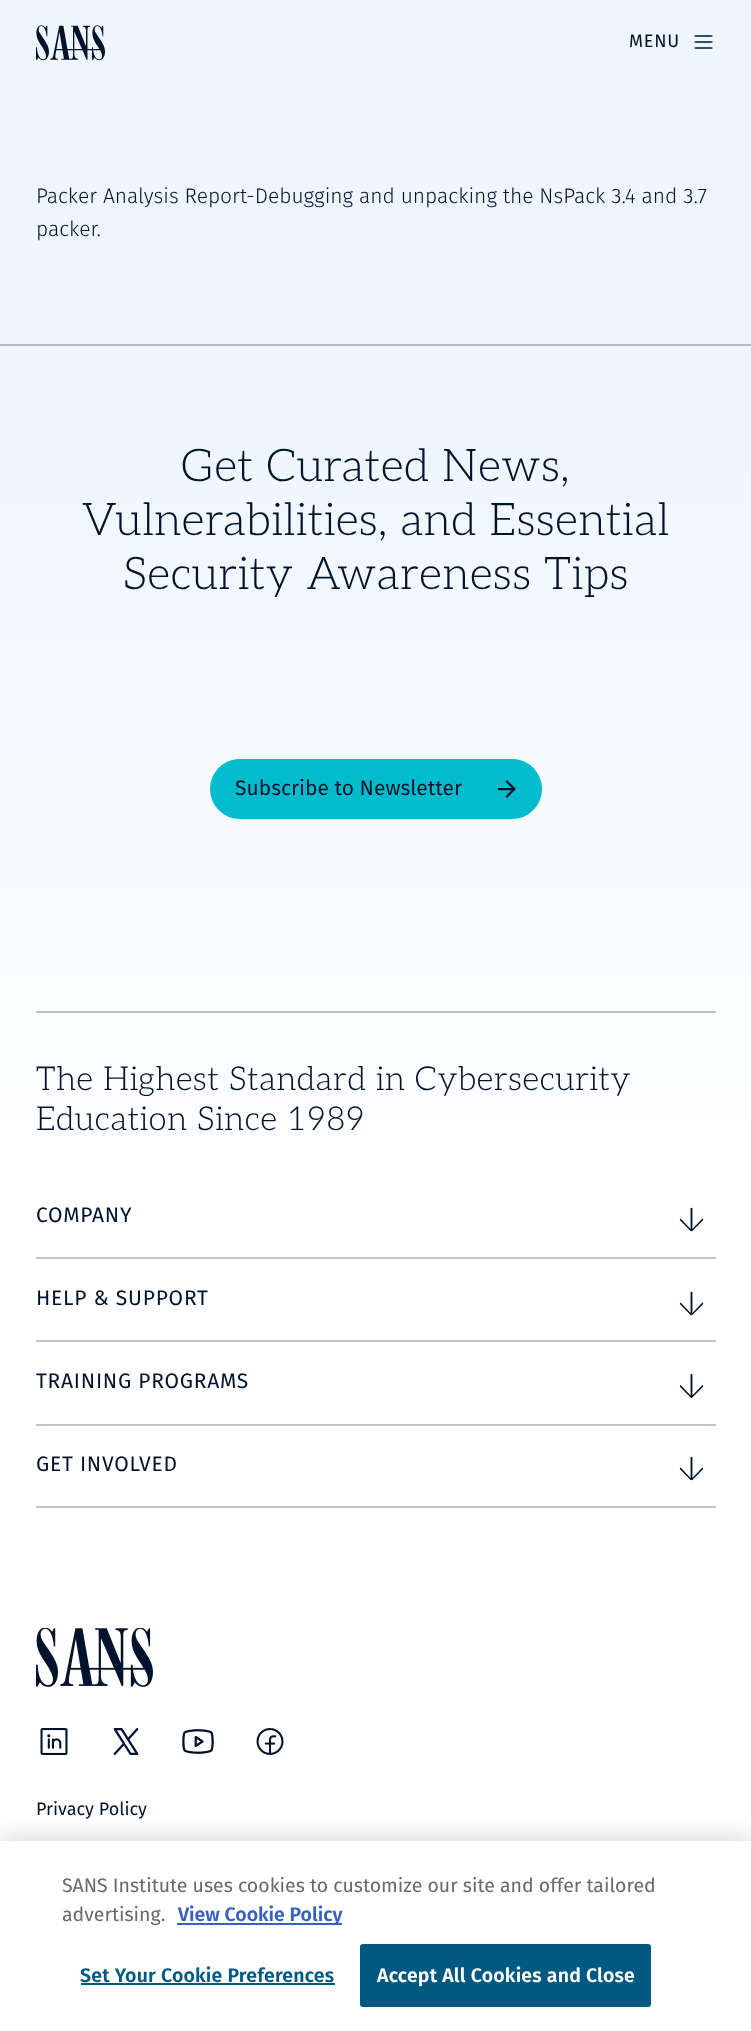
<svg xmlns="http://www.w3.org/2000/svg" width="751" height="2031">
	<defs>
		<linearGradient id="g1" gradientUnits="userSpaceOnUse" x1="376" y1="345" x2="376" y2="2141"><stop offset="0" stop-color="#EEF5FE" /><stop offset="0.48" stop-color="#FFFFFF" /><stop offset="1" stop-color="#FFFFFF" /></linearGradient>
	</defs>
	<rect width="100%" height="100%" fill="#EEF5FE" />
	<image x="36" y="25" width="69" height="36" href="assets/img1.png" />
	<text x="629" y="47" font-family="Fira Sans" font-size="18" letter-spacing="0.75" fill="#00132C">MENU</text>
	<image x="694" y="35" width="19" height="14" href="assets/img2.png" />
	<g font-family="Fira Sans" font-size="21" font-weight="300" fill="#00132C">
		<text x="36" y="203">Packer Analysis Report-Debugging and unpacking the NsPack 3.4 and 3.7</text>
		<text x="36" y="236">packer.</text>
	</g>
	<rect x="0" y="472" width="751" height="1369" fill="url(#g1)" />
	<rect x="0" y="344" width="751" height="2" fill="#B3BDCA" />
	<rect x="36" y="1011" width="680" height="2" fill="#BCC3CA" />
	<g font-family="Aleo" font-size="45" font-weight="300" letter-spacing="0.75" fill="#00132C">
		<text x="181" y="481">Get Curated News,</text>
		<text x="82" y="535">Vulnerabilities, and Essential</text>
		<text x="123" y="589">Security Awareness Tips</text>
	</g>
	<rect x="211" y="760" width="330" height="58" rx="29" fill="#00BCCC" stroke="#00BCCC" stroke-width="2" />
	<text x="235" y="795" font-family="Fira Sans" font-size="21" fill="#00132C">Subscribe to Newsletter</text>
	<image x="498" y="780" width="18" height="18" href="assets/img3.png" />
	<g font-family="Aleo" font-size="33" font-weight="300" letter-spacing="0.75" fill="#00132C">
		<text x="36" y="1090">The Highest Standard in Cybersecurity</text>
		<text x="36" y="1130">Education Since 1989</text>
	</g>
	<rect x="36" y="1257" width="680" height="2" fill="#BFC4CA" />
	<text x="36" y="1222" font-family="Fira Sans" font-size="21" letter-spacing="0.75" fill="#00132C">COMPANY</text>
	<image x="679" y="1207" width="25" height="25" href="assets/img4.png" />
	<rect x="36" y="1340" width="680" height="2" fill="#BFC4CA" />
	<text x="36" y="1305" font-family="Fira Sans" font-size="21" letter-spacing="0.75" fill="#00132C">HELP &amp; SUPPORT</text>
	<image x="679" y="1291" width="25" height="25" href="assets/img4.png" />
	<rect x="36" y="1424" width="680" height="2" fill="#BFC4CA" />
	<text x="36" y="1388" font-family="Fira Sans" font-size="21" letter-spacing="0.75" fill="#00132C">TRAINING PROGRAMS</text>
	<image x="679" y="1374" width="25" height="24" href="assets/img5.png" />
	<rect x="36" y="1506" width="680" height="2" fill="#BFC4CA" />
	<text x="36" y="1471" font-family="Fira Sans" font-size="21" letter-spacing="0.75" fill="#00132C">GET INVOLVED</text>
	<image x="679" y="1456" width="25" height="25" href="assets/img4.png" />
	<image x="36" y="1628" width="117" height="59" href="assets/img6.png" />
	<image x="40" y="1728" width="28" height="27" href="assets/img7.png" />
	<image x="113" y="1728" width="26" height="27" href="assets/img8.png" />
	<image x="182" y="1729" width="32" height="25" href="assets/img9.png" />
	<image x="256" y="1728" width="28" height="27" href="assets/img10.png" />
	<text x="36" y="1815" font-family="Fira Sans" font-size="18" fill="#00132C">Privacy Policy</text>
	<rect x="0" y="1841" width="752" height="190" fill="#000000" fill-opacity="0.2" filter="blur(13.5px)" />
	<rect x="0" y="1841" width="751" height="190" fill="#FFFFFF" />
	<g font-family="Fira Sans" font-size="19.5" fill="#696969">
		<text x="62" y="1892">SANS Institute uses cookies to customize our site and offer tailored</text>
		<text x="62" y="1921">advertising.</text>
	</g>
	<rect x="177" y="1923" width="165" height="2" fill="#3860BE" />
	<text x="178" y="1921" font-family="Fira Sans" font-size="19.5" font-weight="600" fill="#3860BE">View Cookie Policy</text>
	<text x="80" y="1982" font-family="Fira Sans" font-size="19.5" font-weight="600" letter-spacing="0.2" fill="#005980">Set Your Cookie Preferences</text>
	<rect x="81" y="1983" width="254" height="2" fill="#005980" />
	<rect x="361" y="1945" width="289" height="61" rx="2" fill="#005980" stroke="#005980" stroke-width="2" />
	<text x="377" y="1982" font-family="Fira Sans" font-size="19.5" font-weight="600" letter-spacing="0.2" fill="#FFFFFF">Accept All Cookies and Close</text>
</svg>
